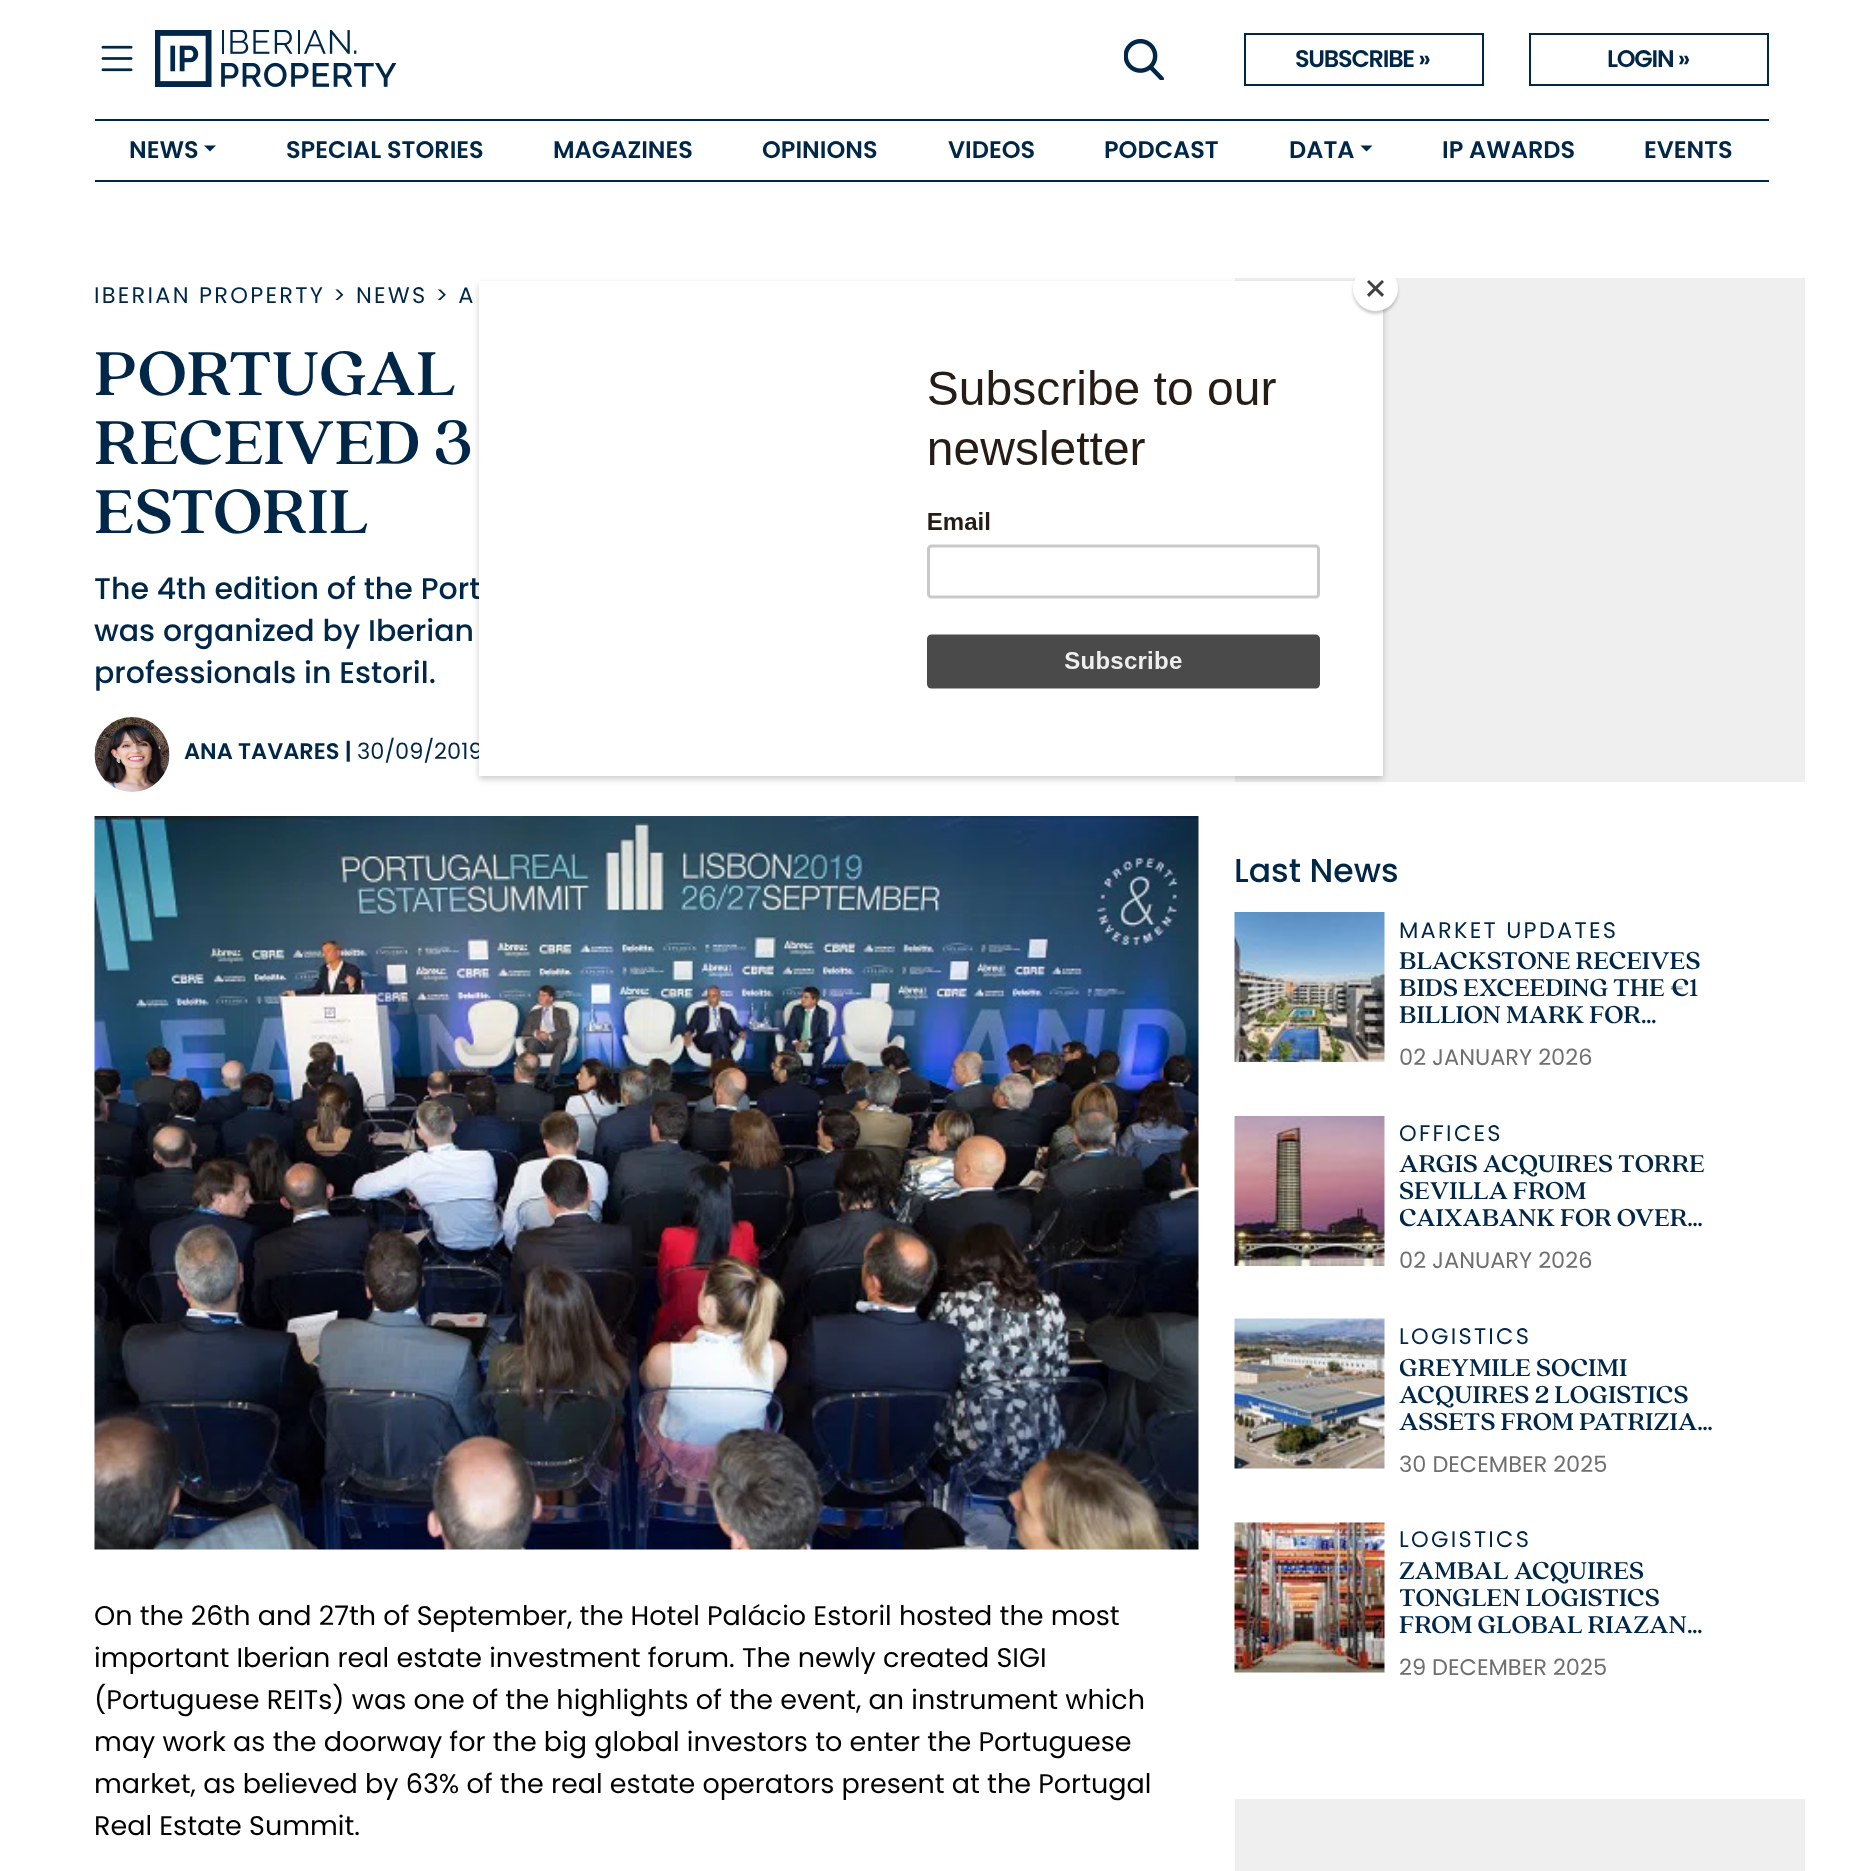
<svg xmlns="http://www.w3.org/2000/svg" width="1861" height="1871">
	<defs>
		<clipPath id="clip1"><rect x="1400" y="1151" width="339" height="81" /></clipPath>
		<clipPath id="clip2"><rect x="1400" y="1353" width="339" height="81" /></clipPath>
		<clipPath id="clip3"><rect x="1400" y="1557" width="339" height="81" /></clipPath>
	</defs>
	<rect width="100%" height="100%" fill="#FFFFFF" />
	<rect x="95" y="119" width="1674" height="2" fill="#002648" />
	<image x="101" y="45" width="32" height="27" href="assets/img1.png" />
	<image x="155" y="30" width="241" height="57" href="assets/img2.png" />
	<image x="1124" y="39" width="40" height="41" href="assets/img3.png" />
	<rect x="1245" y="34" width="238" height="51" fill="none" stroke="#002648" stroke-width="2" />
	<text x="1295" y="67" font-family="Poppins" font-size="24" font-weight="600" letter-spacing="-1.25" fill="#002648">SUBSCRIBE »</text>
	<rect x="1530" y="34" width="238" height="51" fill="none" stroke="#002648" stroke-width="2" />
	<text x="1607" y="67" font-family="Poppins" font-size="24" font-weight="600" letter-spacing="-1.25" fill="#002648">LOGIN »</text>
	<rect x="95" y="180" width="1674" height="2" fill="#002648" />
	<text x="129" y="158" font-family="Poppins" font-size="24" font-weight="600" fill="#002648">NEWS</text>
	<path d="M204 145.5H216L210 151.5Z" fill="#002648" />
	<g font-family="Poppins" font-size="24" font-weight="600" fill="#002648">
		<text x="286" y="158">SPECIAL STORIES</text>
		<text x="553" y="158">MAGAZINES</text>
		<text x="762" y="158">OPINIONS</text>
		<text x="948" y="158">VIDEOS</text>
		<text x="1104" y="158">PODCAST</text>
		<text x="1289" y="158">DATA</text>
	</g>
	<path d="M1360.5 145.5H1372.5L1366.5 151.5Z" fill="#002648" />
	<g font-family="Poppins" font-size="24" font-weight="600" fill="#002648">
		<text x="1442" y="158">IP AWARDS</text>
		<text x="1644" y="158">EVENTS</text>
	</g>
	<text x="94" y="303" font-family="Poppins" font-size="22.5" letter-spacing="2.25" fill="#002648">IBERIAN PROPERTY &gt; NEWS &gt; A</text>
	<g font-family="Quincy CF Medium" font-size="69" font-weight="500" fill="#002648">
		<text x="94" y="395">PORTUGAL</text>
		<text x="94" y="464">RECEIVED 3</text>
		<text x="94" y="533">ESTORIL</text>
	</g>
	<g font-family="Poppins" font-size="30" font-weight="500" fill="#002648">
		<text x="94" y="599">The 4th edition of the Port</text>
		<text x="94" y="641">was organized by Iberian</text>
		<text x="94" y="683">professionals in Estoril.</text>
	</g>
	<image x="94" y="717" width="76" height="75" href="assets/img4.png" />
	<text x="184" y="759" font-family="Poppins" font-size="22.5" font-weight="600" fill="#002648">ANA TAVARES |</text>
	<text x="357" y="759" font-family="Poppins" font-size="22.5" fill="#002648">30/09/2019</text>
	<image x="94" y="816" width="1105" height="734" href="assets/img5.png" />
	<g font-family="Poppins" font-size="27" fill="#000000">
		<text x="94" y="1625">On the 26th and 27th of September, the Hotel Palácio Estoril hosted the most</text>
		<text x="94" y="1667">important Iberian real estate investment forum. The newly created SIGI</text>
		<text x="94" y="1709">(Portuguese REITs) was one of the highlights of the event, an instrument which</text>
		<text x="94" y="1751">may work as the doorway for the big global investors to enter the Portuguese</text>
		<text x="94" y="1793">market, as believed by 63% of the real estate operators present at the Portugal</text>
		<text x="94" y="1835">Real Estate Summit.</text>
	</g>
	<rect x="1235" y="278" width="570" height="504" fill="#EFEFEF" />
	<text x="1234" y="882" font-family="Poppins" font-size="33" font-weight="500" fill="#002648">Last News</text>
	<image x="1234" y="912" width="151" height="150" href="assets/img6.png" />
	<text x="1399" y="938" font-family="Poppins" font-size="22.5" letter-spacing="2.25" fill="#002648">MARKET UPDATES</text>
	<g font-family="Quincy CF Medium" font-size="27" font-weight="500" fill="#002648">
		<text x="1399" y="969">BLACKSTONE RECEIVES</text>
		<text x="1399" y="996">BIDS EXCEEDING THE €1</text>
		<text x="1399" y="1023">BILLION MARK FOR…</text>
	</g>
	<text x="1399" y="1065" font-family="Poppins" font-size="22.5" fill="#6F6F6F">02 JANUARY 2026</text>
	<image x="1234" y="1116" width="151" height="150" href="assets/img7.png" />
	<text x="1399" y="1141" font-family="Poppins" font-size="22.5" letter-spacing="2.25" fill="#002648">OFFICES</text>
	<g font-family="Quincy CF Medium" font-size="27" font-weight="500" fill="#002648">
		<text x="1399" y="1172">ARGIS ACQUIRES TORRE</text>
		<text x="1399" y="1199">SEVILLA FROM</text>
	</g>
	<g clip-path="url(#clip1)">
		<text x="1399" y="1226" font-family="Quincy CF Medium" font-size="27" font-weight="500" fill="#002648">CAIXABANK FOR OVER…</text>
	</g>
	<text x="1399" y="1268" font-family="Poppins" font-size="22.5" fill="#6F6F6F">02 JANUARY 2026</text>
	<image x="1234" y="1318" width="151" height="151" href="assets/img8.png" />
	<text x="1399" y="1344" font-family="Poppins" font-size="22.5" letter-spacing="2.25" fill="#002648">LOGISTICS</text>
	<g clip-path="url(#clip2)">
		<text x="1399" y="1376" font-family="Quincy CF Medium" font-size="27" font-weight="500" fill="#002648">GREYMILE SOCIMI</text>
	</g>
	<g font-family="Quincy CF Medium" font-size="27" font-weight="500" fill="#002648">
		<text x="1399" y="1403">ACQUIRES 2 LOGISTICS</text>
		<text x="1399" y="1430">ASSETS FROM PATRIZIA…</text>
	</g>
	<text x="1399" y="1472" font-family="Poppins" font-size="22.5" fill="#6F6F6F">30 DECEMBER 2025</text>
	<image x="1234" y="1522" width="151" height="151" href="assets/img9.png" />
	<text x="1399" y="1547" font-family="Poppins" font-size="22.5" letter-spacing="2.25" fill="#002648">LOGISTICS</text>
	<text x="1399" y="1579" font-family="Quincy CF Medium" font-size="27" font-weight="500" fill="#002648">ZAMBAL ACQUIRES</text>
	<g clip-path="url(#clip3)">
		<text x="1399" y="1606" font-family="Quincy CF Medium" font-size="27" font-weight="500" fill="#002648">TONGLEN LOGISTICS</text>
	</g>
	<text x="1399" y="1633" font-family="Quincy CF Medium" font-size="27" font-weight="500" fill="#002648">FROM GLOBAL RIAZAN…</text>
	<text x="1399" y="1675" font-family="Poppins" font-size="22.5" fill="#6F6F6F">29 DECEMBER 2025</text>
	<rect x="1235" y="1799" width="570" height="72" fill="#EFEFEF" />
	<rect x="479" y="284" width="904" height="495" fill="#000000" fill-opacity="0.2" filter="blur(3px)" />
	<image x="479" y="281" width="904" height="495" href="assets/img10.png" />
	<rect x="1353" y="269" width="45" height="45" rx="22.5" fill="#000000" fill-opacity="0.2" filter="blur(1.5px)" />
	<circle cx="1375.5" cy="288.5" r="22.5" fill="#FFFFFF" />
	<path d="M1382 280L1384 282L1369 297L1367 294.5Z" fill="#414141" />
	<path d="M1367 282L1369 280L1384 294.5L1382 297Z" fill="#414141" />
</svg>
